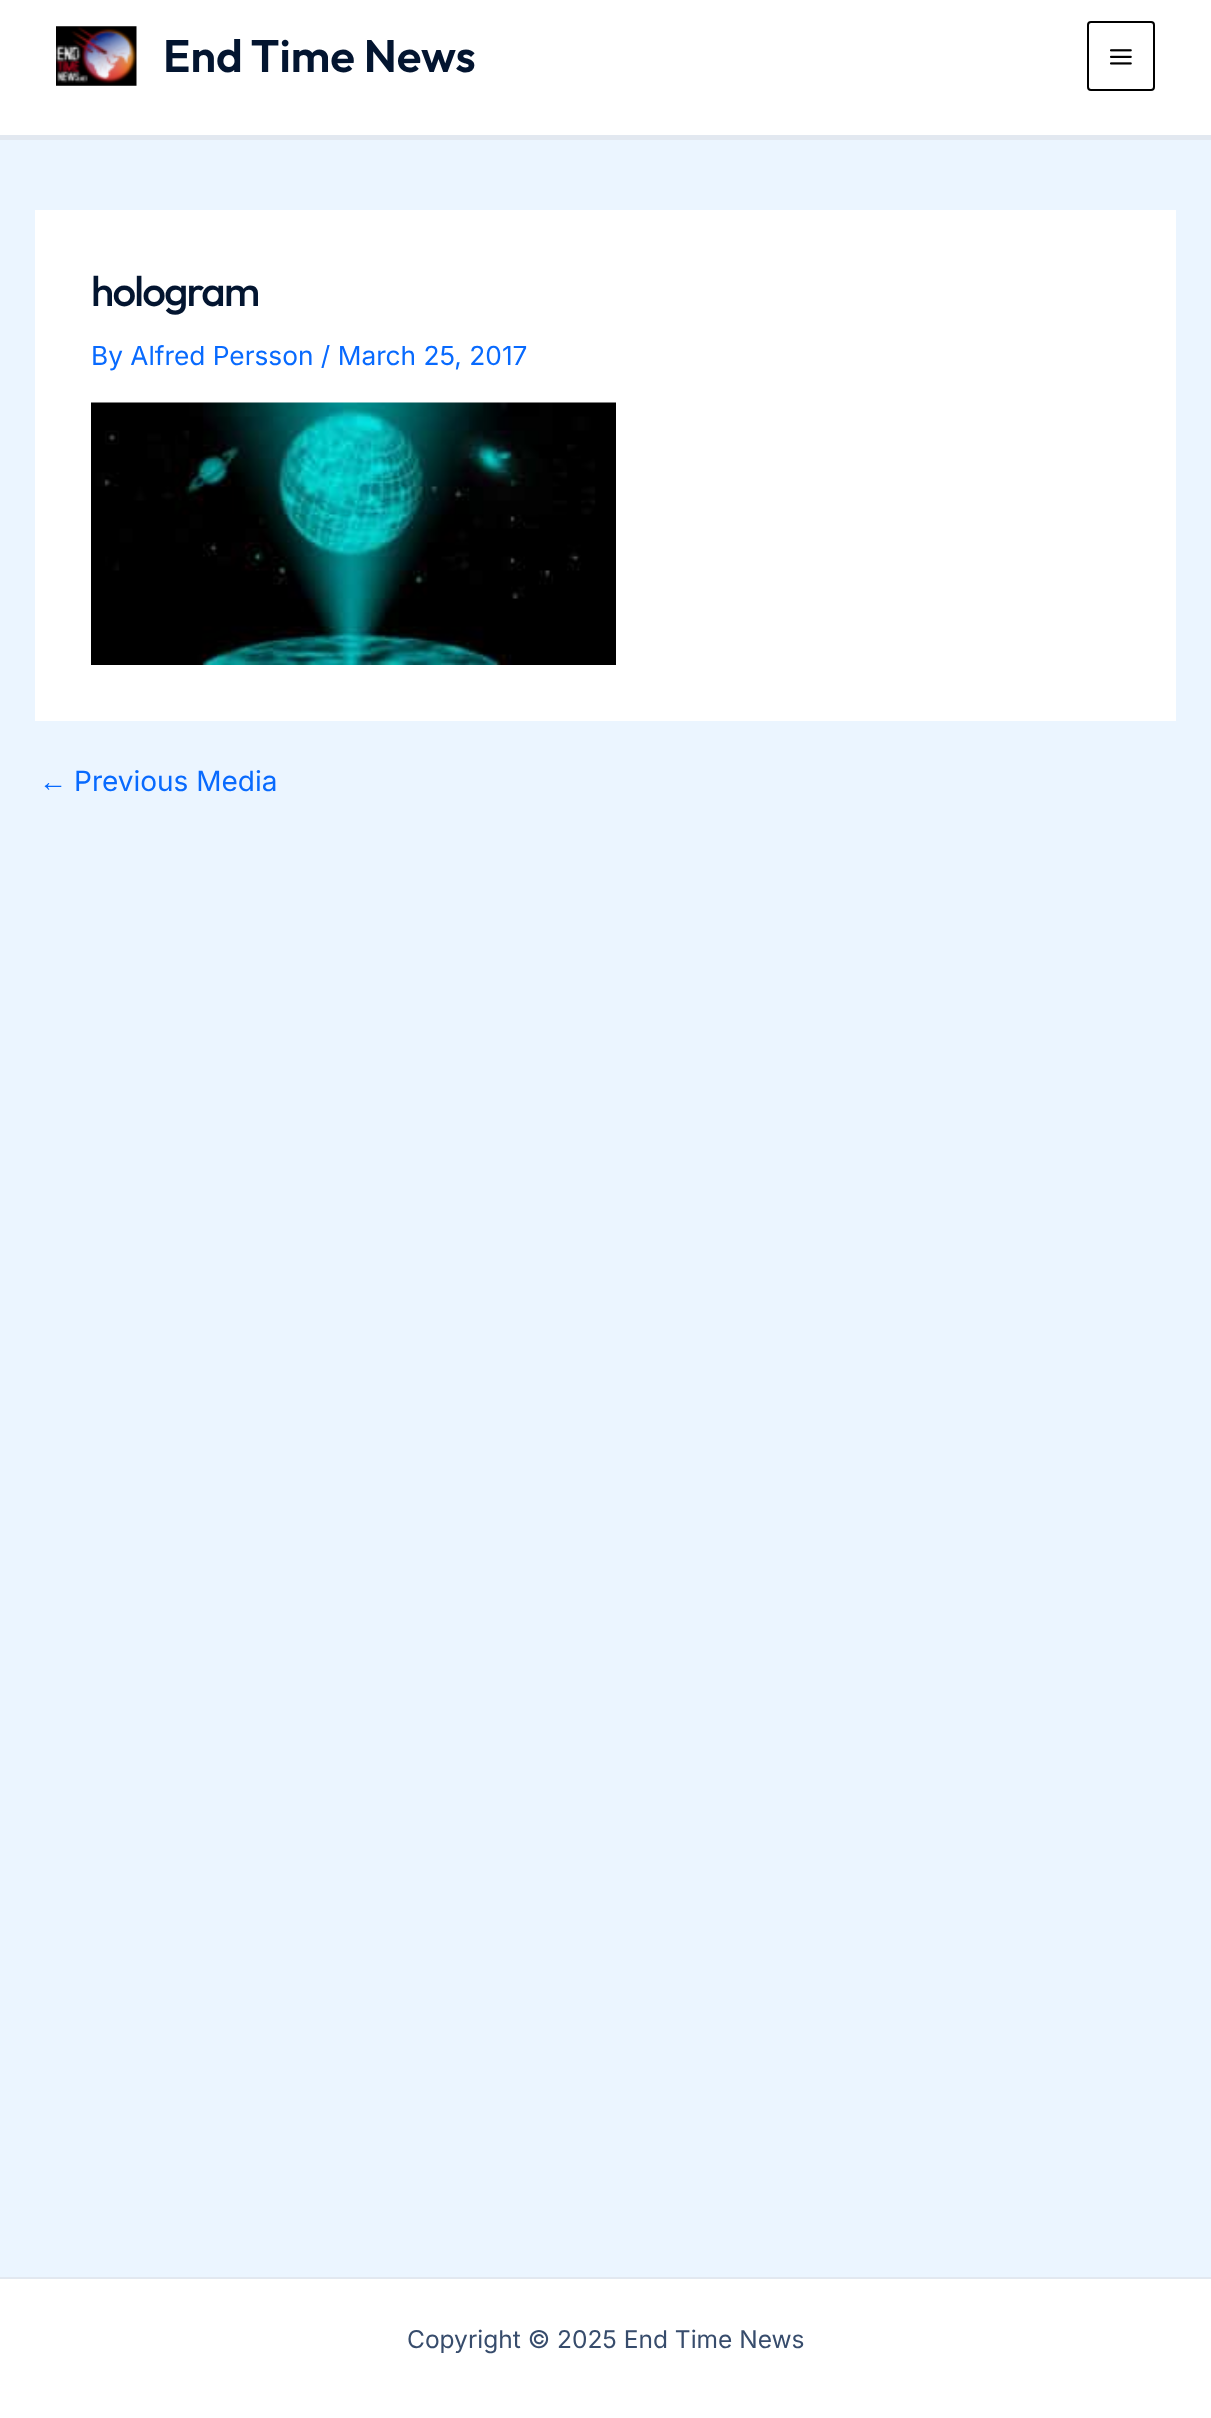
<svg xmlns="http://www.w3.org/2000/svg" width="1211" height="2418">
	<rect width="100%" height="100%" fill="#EBF5FF" />
	<rect x="0" y="0" width="1211" height="135" fill="#FFFFFF" />
	<rect x="0" y="135" width="1211" height="5" fill="#E2E8F0" />
	<image x="56" y="26" width="81" height="60" href="assets/img1.png" />
	<text x="163" y="72" font-family="Outfit" font-size="45.5" font-weight="600" fill="#031530">End Time News</text>
	<rect x="1088" y="22" width="66" height="68" rx="3" fill="none" stroke="#000000" stroke-width="2" />
	<image x="1110" y="49" width="22" height="16" href="assets/img2.png" />
	<rect x="35" y="210" width="1141" height="511" fill="#FFFFFF" />
	<text x="91" y="306" font-family="Outfit" font-size="42" font-weight="500" letter-spacing="-1.75" fill="#031530">hologram</text>
	<text x="91" y="365" font-family="Inter" font-size="26.25" fill="#086AFE">By Alfred Persson / March 25, 2017</text>
	<image x="91" y="402" width="525" height="263" href="assets/img3.png" />
	<text x="39" y="791" font-family="Liberation Sans" font-size="28" fill="#086AFE">←</text>
	<text x="74" y="791" font-family="Inter" font-size="28" fill="#086AFE">Previous Media</text>
	<rect x="0" y="2279" width="1211" height="139" fill="#FFFFFF" />
	<rect x="0" y="2277" width="1211" height="2" fill="#E2E8F0" />
	<text x="407" y="2348" font-family="Inter" font-size="24.5" fill="#374C6C">Copyright © 2025 End Time News</text>
</svg>
